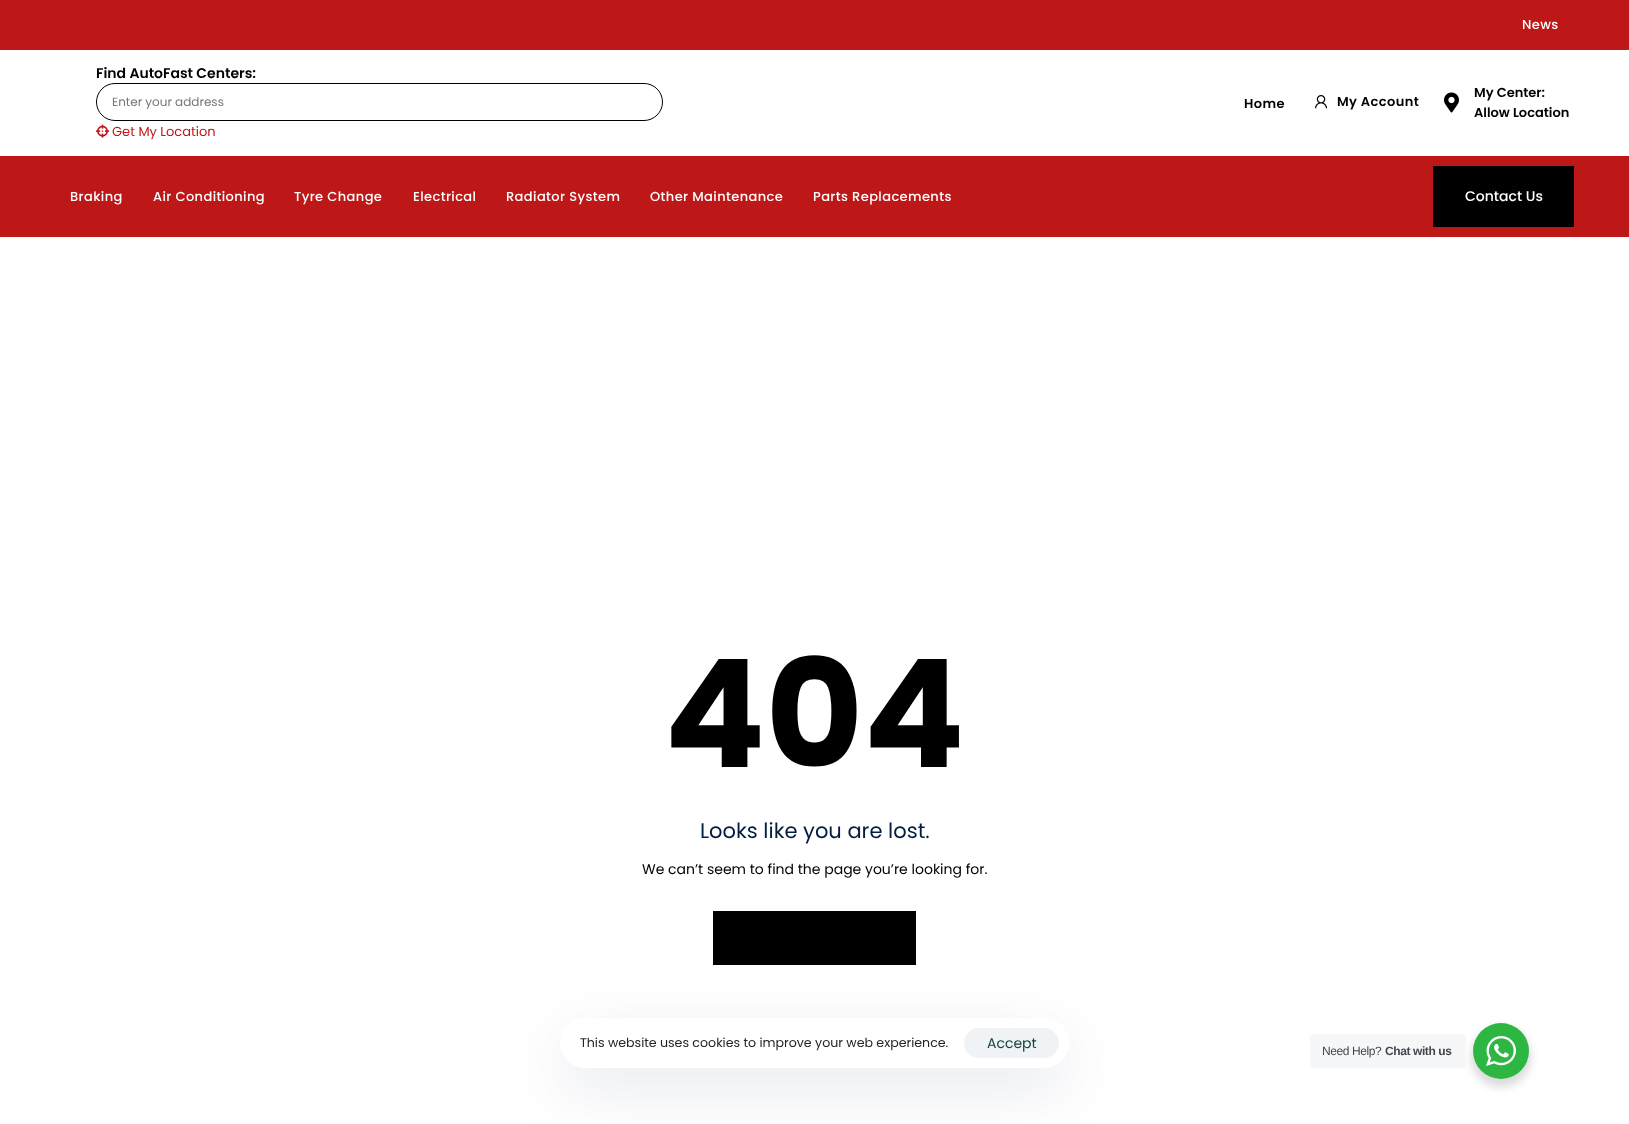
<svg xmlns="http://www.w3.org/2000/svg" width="1629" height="1124">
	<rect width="100%" height="100%" fill="#FFFFFF" />
	<rect x="0" y="0" width="1629" height="50" fill="#BE1717" />
	<text x="1522" y="29" font-family="Poppins" font-size="13" font-weight="500" letter-spacing="0.4" fill="#FFFFFF">News</text>
	<text x="96" y="78" font-family="Poppins" font-size="14" font-weight="600" fill="#000000">Find AutoFast Centers:</text>
	<rect x="96.5" y="83.5" width="566" height="37" rx="18.5" fill="none" stroke="#000000" />
	<text x="112" y="106" font-family="Poppins" font-size="12" fill="#757575">Enter your address</text>
	<image x="96" y="124" width="13" height="14" href="assets/img1.png" />
	<text x="112" y="136" font-family="Poppins" font-size="13" fill="#BE1717">Get My Location</text>
	<text x="1244" y="108" font-family="Poppins" font-size="13" font-weight="600" letter-spacing="0.4" fill="#000000">Home</text>
	<image x="1315" y="95" width="12" height="14" href="assets/img2.png" />
	<text x="1337" y="106" font-family="Poppins" font-size="13" font-weight="600" letter-spacing="0.4" fill="#000000">My Account</text>
	<image x="1444" y="92" width="15" height="21" href="assets/img3.png" />
	<g font-family="Poppins" font-size="13" font-weight="600" fill="#000000">
		<text x="1474" y="97">My Center:</text>
		<text x="1474" y="117">Allow Location</text>
	</g>
	<rect x="0" y="156" width="1629" height="81" fill="#BE1717" />
	<g font-family="Poppins" font-size="13" font-weight="500" letter-spacing="0.4" fill="#FFFFFF">
		<text x="70" y="201">Braking</text>
		<text x="153" y="201">Air Conditioning</text>
		<text x="294" y="201">Tyre Change</text>
		<text x="413" y="201">Electrical</text>
		<text x="506" y="201">Radiator System</text>
		<text x="650" y="201">Other Maintenance</text>
		<text x="813" y="201">Parts Replacements</text>
	</g>
	<rect x="1433" y="166" width="141" height="61" fill="#000000" />
	<text x="1465" y="201" font-family="Poppins" font-size="14" font-weight="500" fill="#FFFFFF">Contact Us</text>
	<text x="664" y="767" font-family="Poppins" font-size="150" font-weight="700" fill="#000000">404</text>
	<text x="700" y="838" font-family="Poppins" font-size="21" fill="#041E42">Looks like you are lost.</text>
	<text x="642" y="874" font-family="Poppins" font-size="14" fill="#000000">We can’t seem to find the page you’re looking for.</text>
	<rect x="713" y="911" width="203" height="54" fill="#000000" />
	<rect x="560" y="1038" width="509" height="50" rx="25" fill="#5C6B95" fill-opacity="0.15" filter="blur(30px)" />
	<rect x="560" y="1018" width="509" height="50" rx="25" fill="#FFFFFF" />
	<text x="580" y="1047" font-family="Poppins" font-size="12.6" fill="#242424">This website uses cookies to improve your web experience.</text>
	<rect x="964" y="1028" width="95" height="30" rx="15" fill="#EFF3F5" />
	<text x="987" y="1048" font-family="Poppins" font-size="14" fill="#184341">Accept</text>
	<rect x="1471" y="1027" width="60" height="60" rx="30" fill="#000000" fill-opacity="0.14" filter="blur(4px)" />
	<rect x="1310" y="1034" width="156" height="34" rx="4" fill="#F5F7F9" />
	<text x="1322" y="1055" font-family="Liberation Sans" font-size="12" letter-spacing="-0.4" fill="#43474E">Need Help?</text>
	<text x="1385" y="1055" font-family="Liberation Sans" font-size="12" font-weight="700" letter-spacing="-0.4" fill="#43474E">Chat with us</text>
	<circle cx="1501" cy="1051" r="28" fill="#2DB742" />
	<image x="1486" y="1036" width="30" height="30" href="assets/img4.png" />
</svg>
